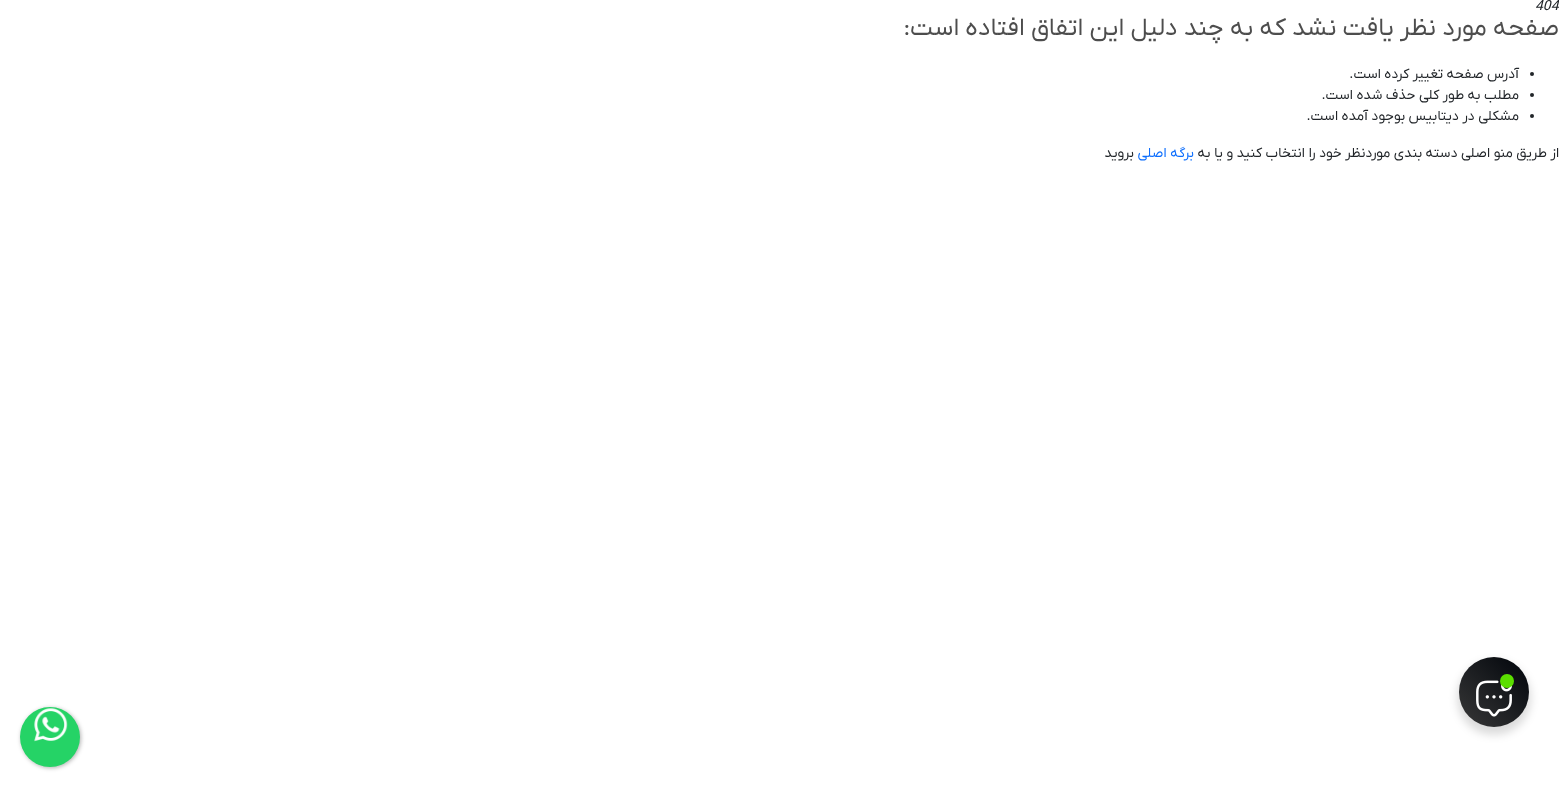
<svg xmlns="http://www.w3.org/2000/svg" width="1559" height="787">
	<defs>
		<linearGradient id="g1" gradientUnits="userSpaceOnUse" x1="1459" y1="727" x2="1529" y2="657"><stop offset="0" stop-color="#383838" /><stop offset="1" stop-color="#00040A" /></linearGradient>
	</defs>
	<rect width="100%" height="100%" fill="#FFFFFF" />
	<text x="1535" y="10" font-family="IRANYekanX" font-size="14" font-style="italic" fill="#212529">404</text>
	<text x="1559" y="35" font-family="IRANYekanX" font-size="25" direction="rtl" fill="#4D4D4D">صفحه مورد نظر یافت نشد که به چند دلیل این اتفاق افتاده است:</text>
	<circle cx="1532" cy="74" r="2" fill="#212529" />
	<text x="1519" y="78" font-family="IRANYekanX" font-size="14" direction="rtl" fill="#212529">آدرس صفحه تغییر کرده است.</text>
	<circle cx="1532" cy="95" r="2" fill="#212529" />
	<text x="1519" y="99" font-family="IRANYekanX" font-size="14" direction="rtl" fill="#212529">مطلب به طور کلی حذف شده است.</text>
	<circle cx="1532" cy="116" r="2" fill="#212529" />
	<g font-family="IRANYekanX" font-size="14" direction="rtl" fill="#212529">
		<text x="1519" y="120">مشکلی در دیتابیس بوجود آمده است.</text>
		<text x="1559" y="157">از طریق منو اصلی دسته بندی موردنظر خود را انتخاب کنید و یا به</text>
	</g>
	<text x="1194" y="157" font-family="IRANYekanX" font-size="14" direction="rtl" fill="#0D6EFD">برگه اصلی</text>
	<text x="1134" y="157" font-family="IRANYekanX" font-size="14" direction="rtl" fill="#212529">بروید</text>
	<rect x="1457" y="661" width="74" height="74" rx="37" fill="#000000" fill-opacity="0.14" filter="blur(4px)" />
	<circle cx="1494" cy="692" r="35" fill="url(#g1)" />
	<image x="1476" y="680" width="36" height="37" href="assets/img1.png" />
	<circle cx="1507" cy="681" r="7" fill="#5BDF00" />
	<rect x="21" y="708" width="60" height="60" rx="30" fill="#000000" fill-opacity="0.3" filter="blur(2px)" />
	<circle cx="50" cy="737" r="30" fill="#25D366" />
	<image x="34" y="708" width="34" height="34" href="assets/img2.png" />
</svg>
